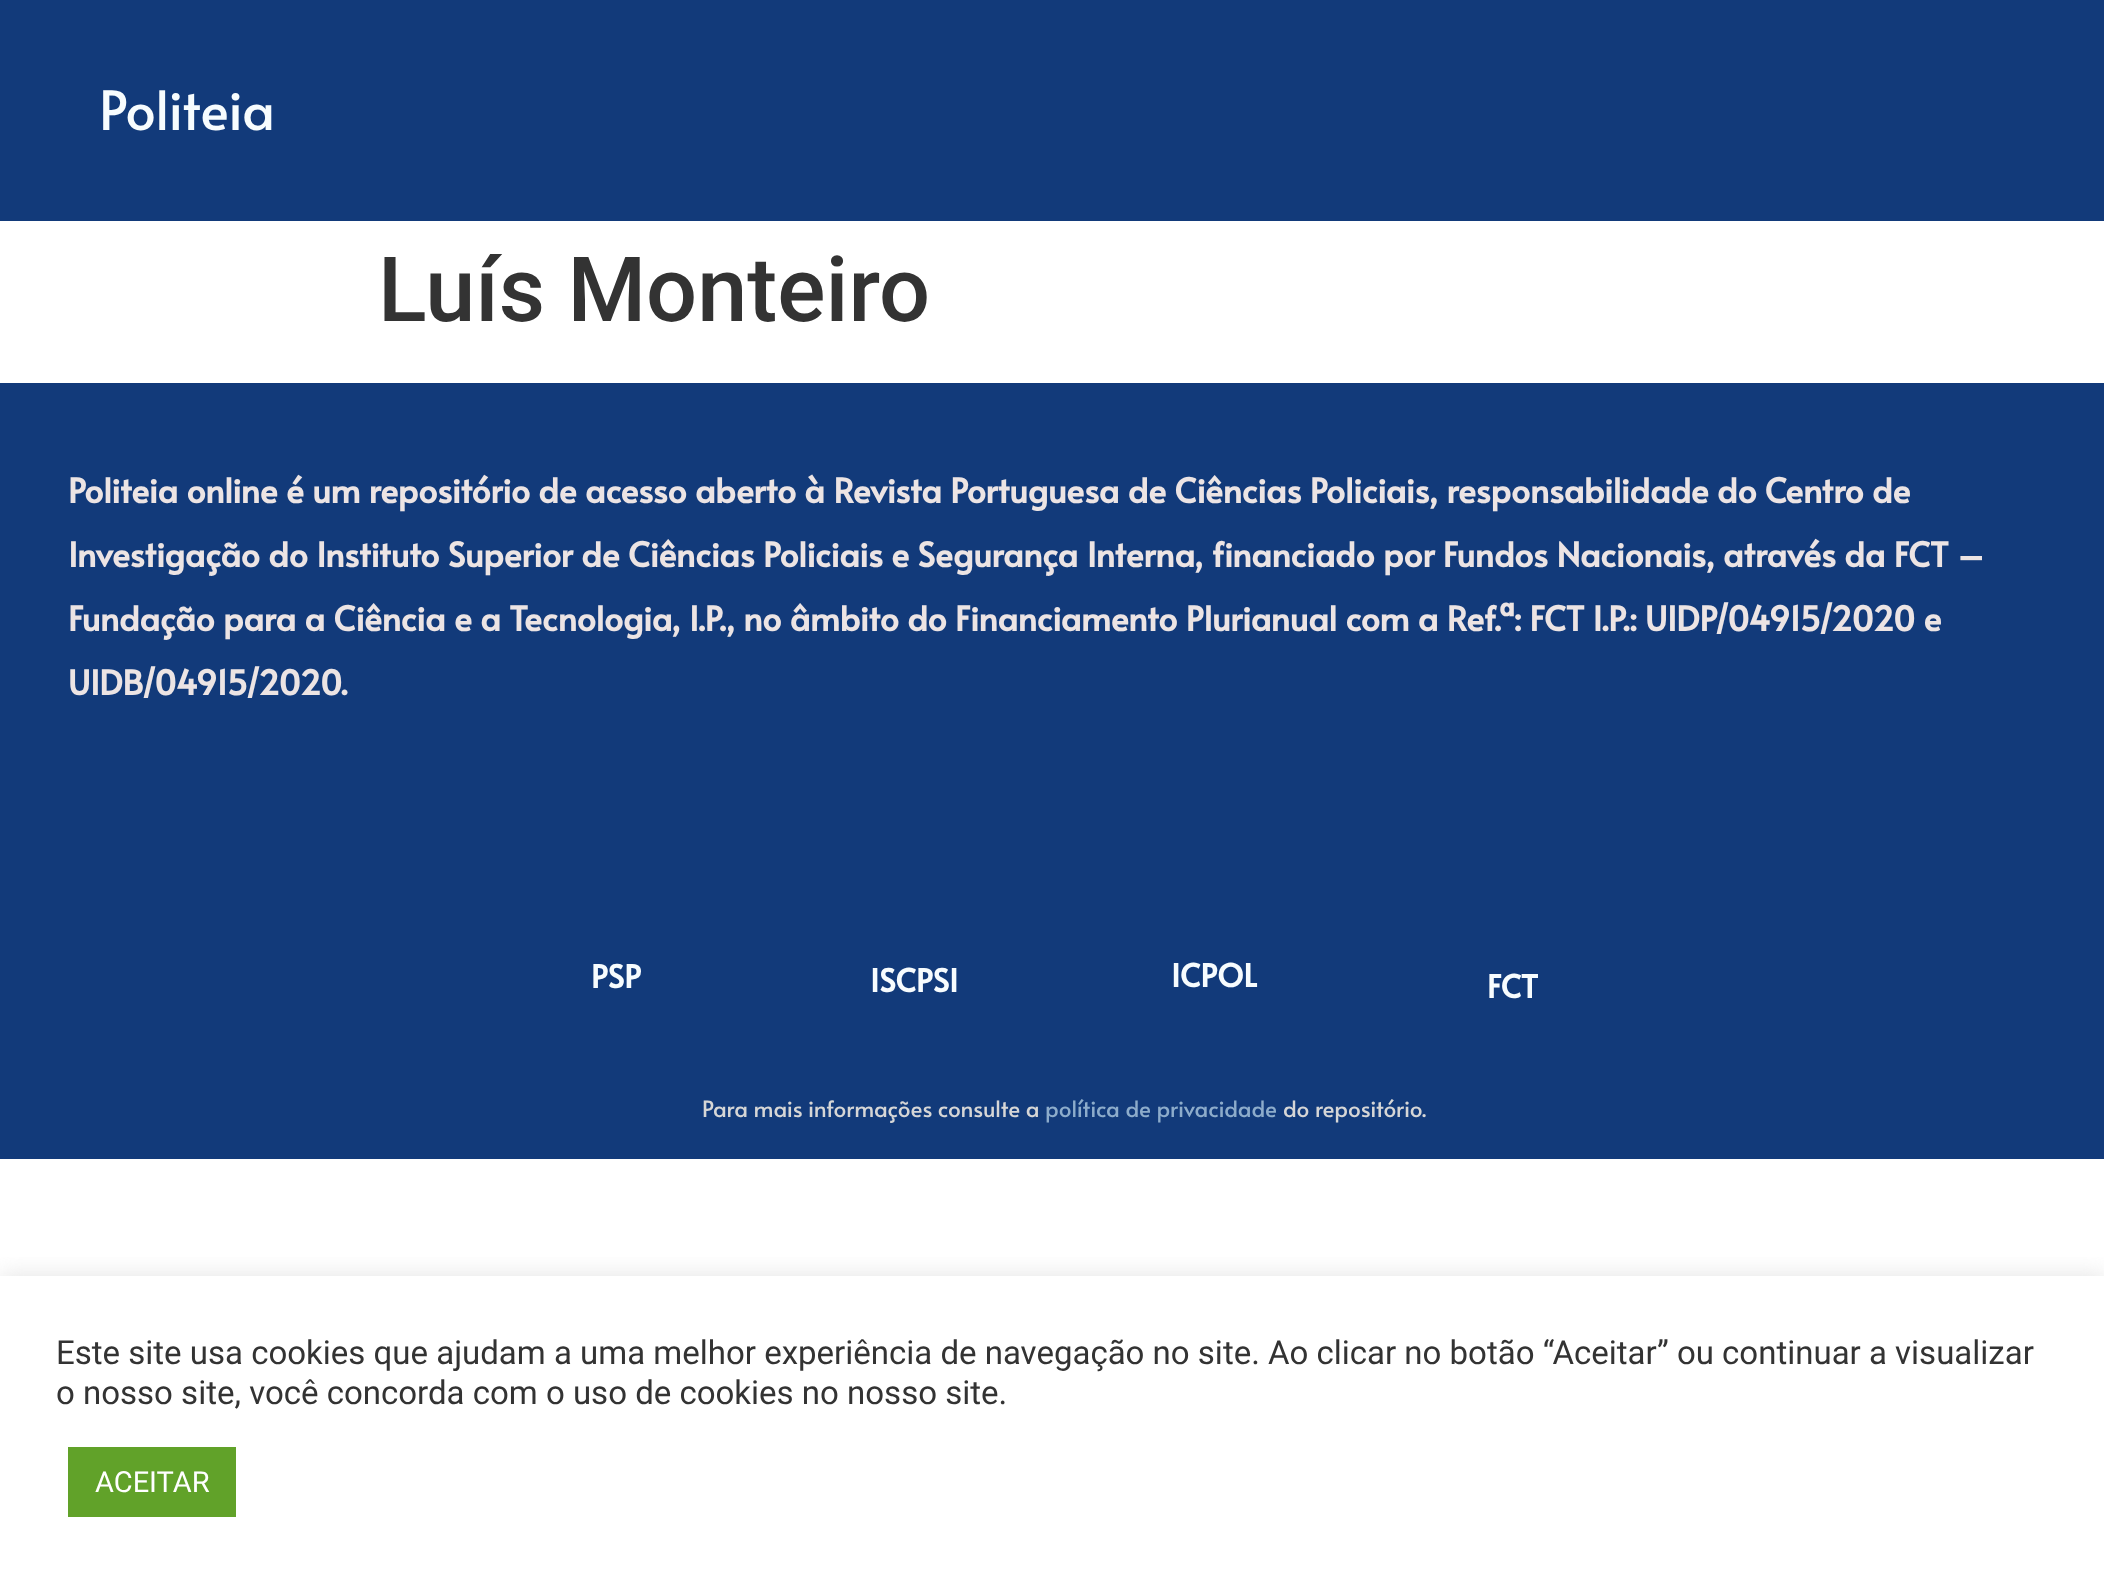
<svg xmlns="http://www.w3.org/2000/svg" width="2104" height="1582">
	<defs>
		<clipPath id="clip1"><rect x="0" y="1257" width="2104" height="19" /></clipPath>
	</defs>
	<rect width="100%" height="100%" fill="#FFFFFF" />
	<rect x="0" y="0" width="2104" height="221" fill="#123A7A" />
	<text x="99" y="130" font-family="Alata" font-size="54" fill="#F7FCFE">Politeia</text>
	<text x="378" y="321" font-family="Roboto" font-size="90" font-weight="500" fill="#333333">Luís Monteiro</text>
	<rect x="0" y="383" width="2104" height="776" fill="#123A7A" />
	<g font-family="Alata" font-size="33.75" font-weight="700" fill="#ECE4E4">
		<text x="68" y="503">Politeia online é um repositório de acesso aberto à Revista Portuguesa de Ciências Policiais, responsabilidade do Centro de</text>
		<text x="68" y="567">Investigação do Instituto Superior de Ciências Policiais e Segurança Interna, financiado por Fundos Nacionais, através da FCT –</text>
		<text x="68" y="631">Fundação para a Ciência e a Tecnologia, I.P., no âmbito do Financiamento Plurianual com a Ref.ª: FCT I.P.: UIDP/04915/2020 e</text>
		<text x="68" y="695">UIDB/04915/2020.</text>
	</g>
	<g font-family="Alata" font-size="31.5" font-weight="700" fill="#F7FCFE">
		<text x="591" y="988">PSP</text>
		<text x="870" y="992">ISCPSI</text>
		<text x="1171" y="987">ICPOL</text>
		<text x="1487" y="998">FCT</text>
	</g>
	<text x="702" y="1117" font-family="Alata" font-size="22.5" fill="#D6D6D6">Para mais informações consulte a</text>
	<text x="1045" y="1117" font-family="Alata" font-size="22.5" fill="#8DACCB">política de privacidade</text>
	<text x="1283" y="1117" font-family="Alata" font-size="22.5" fill="#D6D6D6">do repositório.</text>
	<g clip-path="url(#clip1)">
		<rect x="0" y="1274" width="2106" height="308" fill="#ACABAB" fill-opacity="0.3" filter="blur(11px)" />
	</g>
	<g font-family="Roboto" font-size="33" fill="#333333">
		<text x="56" y="1364">Este site usa cookies que ajudam a uma melhor experiência de navegação no site. Ao clicar no botão “Aceitar” ou continuar a visualizar</text>
		<text x="56" y="1404">o nosso site, você concorda com o uso de cookies no nosso site.</text>
	</g>
	<rect x="68" y="1447" width="168" height="70" fill="#61A229" />
	<text x="95" y="1492" font-family="Roboto" font-size="29" fill="#FFFFFF">ACEITAR</text>
</svg>
